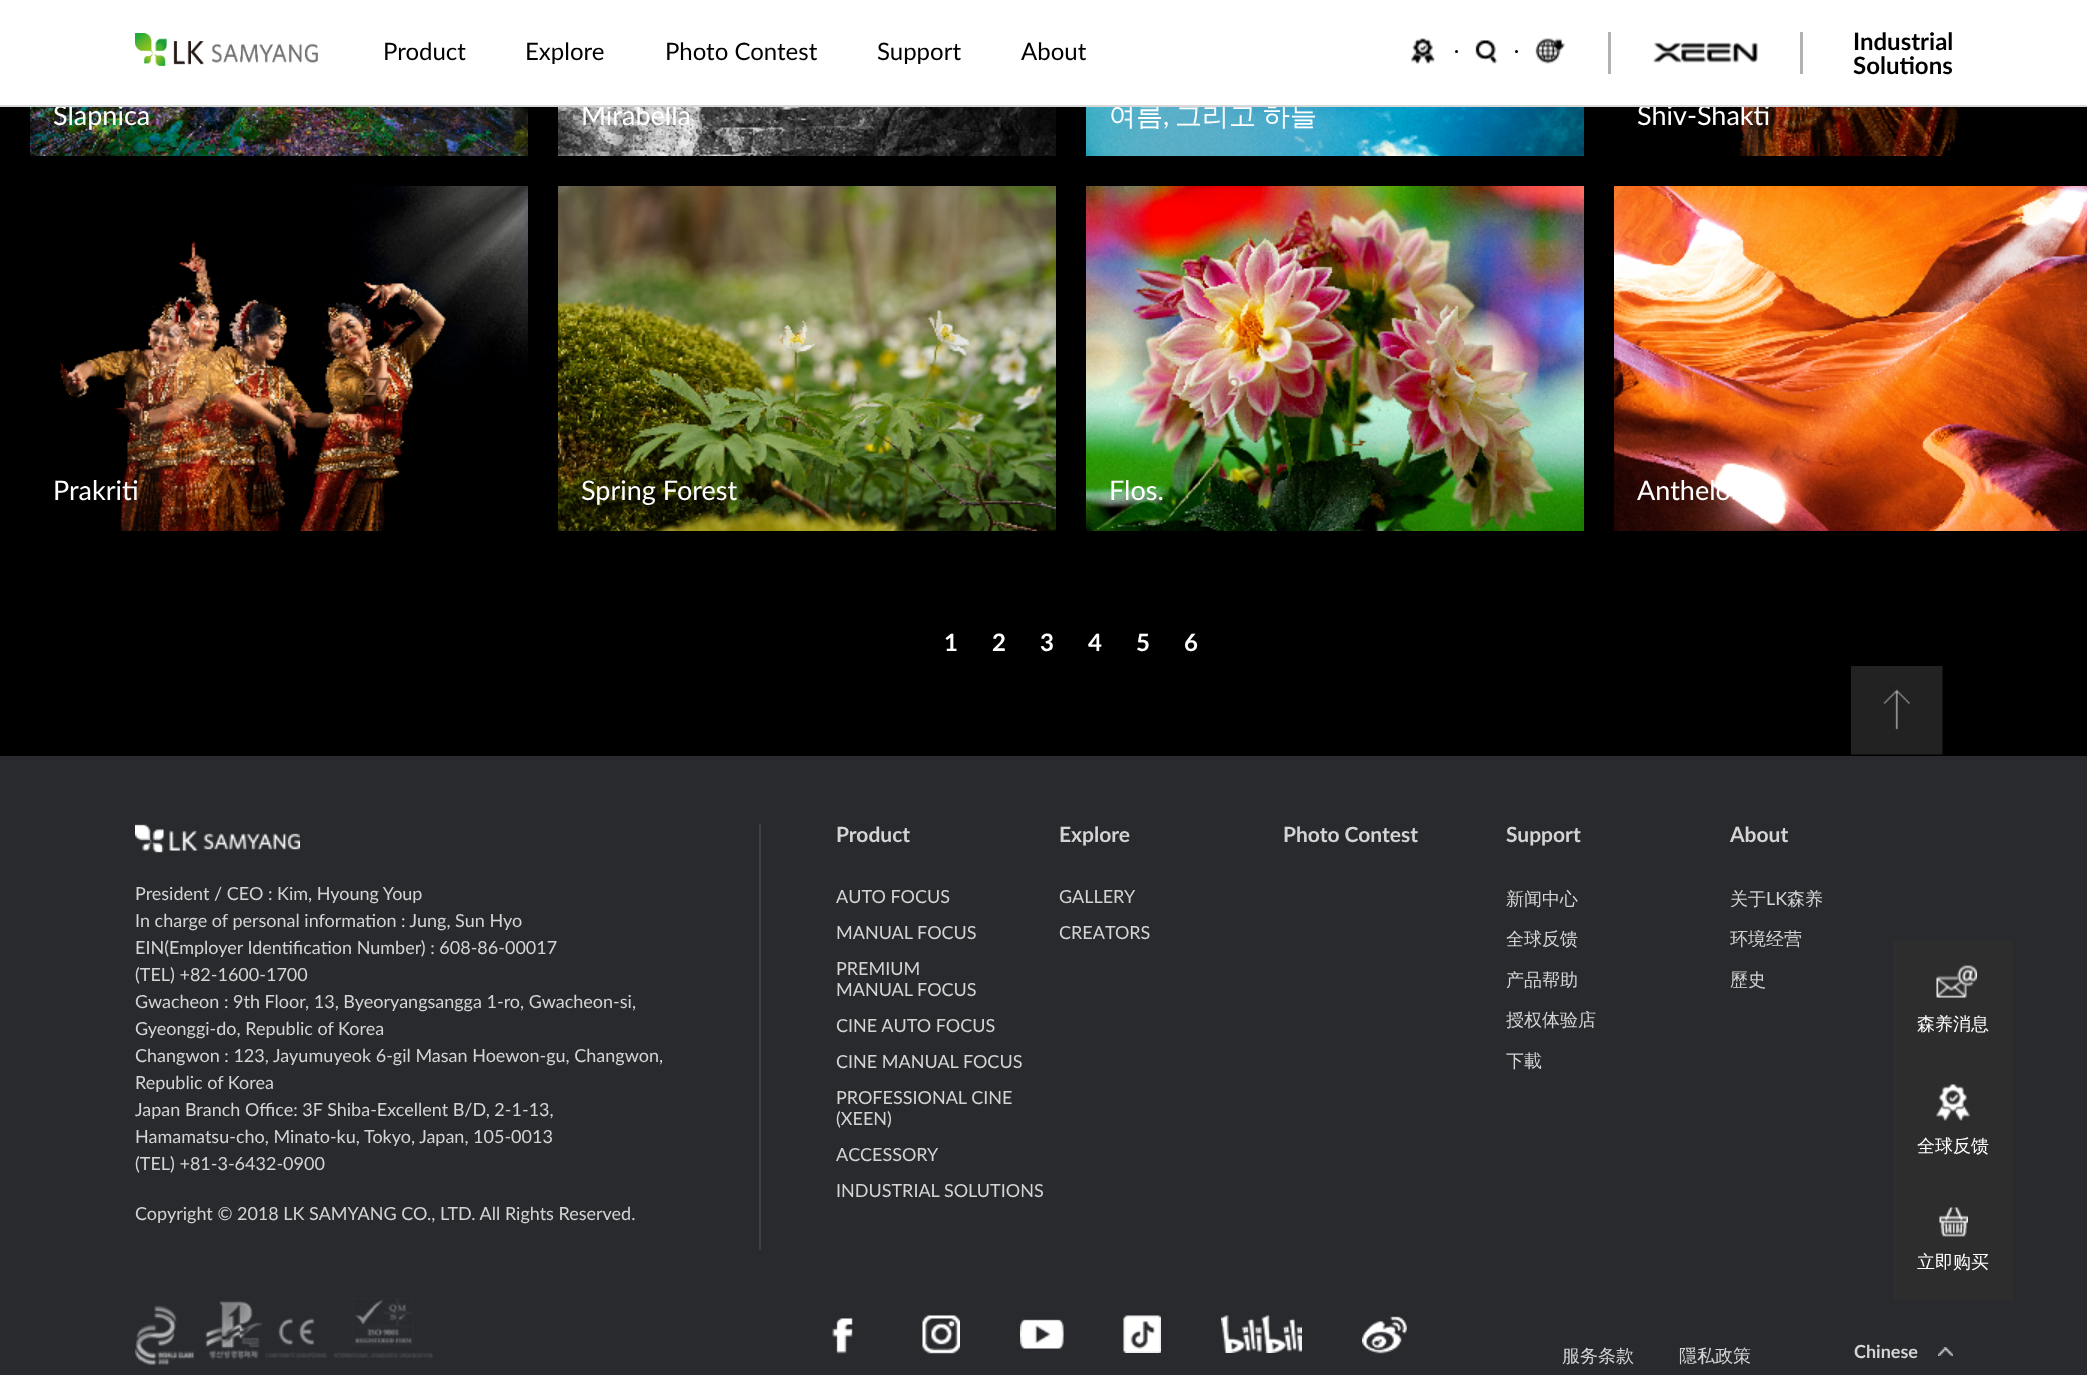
<svg xmlns="http://www.w3.org/2000/svg" width="2087" height="1375">
	<rect width="100%" height="100%" fill="#000000" />
	<rect x="0" y="0" width="2087" height="105" fill="#FFFFFF" />
	<image x="30" y="107" width="498" height="49" href="assets/img6.png" />
	<text x="53" y="125" font-family="Lato" font-size="27" fill="#FFFFFF">Slapnica</text>
	<image x="558" y="107" width="498" height="49" href="assets/img7.png" />
	<text x="581" y="125" font-family="Lato" font-size="27" fill="#FFFFFF">Mirabella</text>
	<image x="1086" y="107" width="498" height="49" href="assets/img8.png" />
	<g font-family="WenQuanYi Zen Hei" font-size="27" font-weight="500" fill="#FFFFFF">
		<text x="1109" y="125">여름</text>
		<text x="1175" y="125" word-spacing="-1">그리고 하늘</text>
	</g>
	<image x="1723" y="107" width="308" height="49" href="assets/img9.png" />
	<text x="1637" y="125" font-family="Lato" font-size="27" fill="#FFFFFF">Shiv-Shakti</text>
	<rect x="0" y="105" width="2087" height="2" fill="#D8D8D8" />
	<image x="135" y="33" width="183" height="33" href="assets/img1.png" />
	<g font-family="Lato" font-size="24" fill="#000000">
		<text x="383" y="60">Product</text>
		<text x="525" y="60">Explore</text>
		<text x="665" y="60">Photo Contest</text>
		<text x="877" y="60">Support</text>
		<text x="1021" y="60">About</text>
	</g>
	<image x="1411" y="38" width="24" height="26" href="assets/img2.png" />
	<circle cx="1456.5" cy="51.5" r="1.5" fill="#000000" />
	<image x="1475" y="40" width="23" height="24" href="assets/img3.png" />
	<circle cx="1516.5" cy="51.5" r="1.5" fill="#000000" />
	<image x="1535" y="38" width="30" height="26" href="assets/img4.png" />
	<image x="1653" y="42" width="105" height="21" href="assets/img5.png" />
	<rect x="1800" y="32" width="3" height="42" fill="#B2B2B2" />
	<rect x="1608" y="32" width="3" height="42" fill="#B2B2B2" />
	<g font-family="Lato" font-size="24" font-weight="700" fill="#000000">
		<text x="1853" y="50">Industrial</text>
		<text x="1853" y="74">Solutions</text>
	</g>
	<text x="1163" y="125" font-family="Lato" font-size="27" fill="#FFFFFF">,</text>
	<image x="59" y="186" width="469" height="345" href="assets/img10.png" />
	<text x="164" y="395" font-family="Lato" font-size="24" font-weight="700" fill="#9F5F36">17</text>
	<text x="363" y="395" font-family="Lato" font-size="24" font-weight="700" fill="#85593E">27</text>
	<text x="53" y="500" font-family="Lato" font-size="27" fill="#FFFFFF">Prakriti</text>
	<image x="558" y="186" width="498" height="345" href="assets/img11.png" />
	<text x="699" y="395" font-family="Lato" font-size="24" font-weight="700" fill="#5D5F1D">0</text>
	<text x="581" y="500" font-family="Lato" font-size="27" fill="#FFFFFF">Spring Forest</text>
	<image x="1086" y="186" width="498" height="345" href="assets/img12.png" />
	<text x="1227" y="395" font-family="Lato" font-size="24" font-weight="700" fill="#C7A396">2</text>
	<text x="1426" y="395" font-family="Lato" font-size="24" font-weight="700" fill="#894C25">9</text>
	<text x="1109" y="500" font-family="Lato" font-size="27" fill="#FFFFFF">Flos.</text>
	<image x="1614" y="186" width="473" height="345" href="assets/img13.png" />
	<text x="1637" y="500" font-family="Lato" font-size="27" fill="#FFFFFF">Anthelo</text>
	<g font-family="Lato" font-size="24" font-weight="700" fill="#FFFFFF">
		<text x="944" y="651">1</text>
		<text x="992" y="651">2</text>
		<text x="1040" y="651">3</text>
		<text x="1088" y="651">4</text>
		<text x="1136" y="651">5</text>
		<text x="1184" y="651">6</text>
	</g>
	<image x="1851" y="666" width="92" height="89" href="assets/img14.png" />
	<rect x="0" y="756" width="2087" height="619" fill="#292A2E" />
	<rect x="759" y="824" width="2" height="426" fill="#3E3F43" />
	<image x="135" y="824" width="165" height="29" href="assets/img15.png" />
	<g font-family="Lato" font-size="18" fill="#D4D4D5">
		<text x="135" y="900">President / CEO : Kim, Hyoung Youp</text>
		<text x="135" y="927">In charge of personal information : Jung, Sun Hyo</text>
		<text x="135" y="954">EIN(Employer Identification Number) : 608-86-00017</text>
		<text x="135" y="981">(TEL) +82-1600-1700</text>
		<text x="135" y="1008">Gwacheon : 9th Floor, 13, Byeoryangsangga 1-ro, Gwacheon-si,</text>
		<text x="135" y="1035">Gyeonggi-do, Republic of Korea</text>
		<text x="135" y="1062">Changwon : 123, Jayumuyeok 6-gil Masan Hoewon-gu, Changwon,</text>
		<text x="135" y="1089">Republic of Korea</text>
		<text x="135" y="1116">Japan Branch Office: 3F Shiba-Excellent B/D, 2-1-13,</text>
		<text x="135" y="1143">Hamamatsu-cho, Minato-ku, Tokyo, Japan, 105-0013</text>
		<text x="135" y="1170">(TEL) +81-3-6432-0900</text>
		<text x="135" y="1220">Copyright © 2018 LK SAMYANG CO., LTD. All Rights Reserved.</text>
	</g>
	<text x="836" y="842" font-family="Lato" font-size="21" font-weight="700" fill="#D4D4D5">Product</text>
	<g font-family="Lato" font-size="18" fill="#D4D4D5">
		<text x="836" y="903">AUTO FOCUS</text>
		<text x="836" y="939">MANUAL FOCUS</text>
		<text x="836" y="975">PREMIUM</text>
		<text x="836" y="996">MANUAL FOCUS</text>
		<text x="836" y="1032">CINE AUTO FOCUS</text>
		<text x="836" y="1068">CINE MANUAL FOCUS</text>
		<text x="836" y="1104">PROFESSIONAL CINE</text>
		<text x="836" y="1125">(XEEN)</text>
		<text x="836" y="1161">ACCESSORY</text>
		<text x="836" y="1197">INDUSTRIAL SOLUTIONS</text>
	</g>
	<text x="1059" y="842" font-family="Lato" font-size="21" font-weight="700" fill="#D4D4D5">Explore</text>
	<g font-family="Lato" font-size="18" fill="#D4D4D5">
		<text x="1059" y="903">GALLERY</text>
		<text x="1059" y="939">CREATORS</text>
	</g>
	<g font-family="Lato" font-size="21" font-weight="700" fill="#D4D4D5">
		<text x="1283" y="842">Photo Contest</text>
		<text x="1506" y="842">Support</text>
	</g>
	<g font-family="WenQuanYi Zen Hei" font-size="18" font-weight="500" fill="#D4D4D5">
		<text x="1506" y="905">新闻中心</text>
		<text x="1506" y="945">全球反馈</text>
		<text x="1506" y="986">产品帮助</text>
		<text x="1506" y="1026">授权体验店</text>
		<text x="1506" y="1067">下載</text>
	</g>
	<text x="1730" y="842" font-family="Lato" font-size="21" font-weight="700" fill="#D4D4D5">About</text>
	<text x="1730" y="905" font-family="WenQuanYi Zen Hei" font-size="18" font-weight="500" fill="#D4D4D5">关于</text>
	<text x="1766" y="905" font-family="Lato" font-size="18" fill="#D4D4D5">LK</text>
	<g font-family="WenQuanYi Zen Hei" font-size="18" font-weight="500" fill="#D4D4D5">
		<text x="1787" y="905">森养</text>
		<text x="1730" y="945">环境经营</text>
		<text x="1730" y="986">歷史</text>
	</g>
	<image x="135" y="1298" width="298" height="67" href="assets/img16.png" />
	<image x="832" y="1318" width="21" height="36" href="assets/img17.png" />
	<image x="922" y="1315" width="38" height="39" href="assets/img18.png" />
	<image x="1020" y="1319" width="44" height="30" href="assets/img19.png" />
	<image x="1123" y="1315" width="38" height="38" href="assets/img20.png" />
	<image x="1221" y="1315" width="81" height="38" href="assets/img21.png" />
	<image x="1362" y="1316" width="45" height="38" href="assets/img22.png" />
	<g font-family="WenQuanYi Zen Hei" font-size="18" font-weight="500" fill="#D4D4D5">
		<text x="1562" y="1362">服务条款</text>
		<text x="1679" y="1362">隱私政策</text>
	</g>
	<text x="1854" y="1358" font-family="Lato" font-size="18" font-weight="700" fill="#D4D4D5">Chinese</text>
	<image x="1938" y="1347" width="15" height="9" href="assets/img23.png" />
	<rect x="1893" y="941" width="120" height="360" fill="#2D2D2D" />
	<image x="1936" y="965" width="41" height="33" href="assets/img24.png" />
	<text x="1917" y="1030" font-family="WenQuanYi Zen Hei" font-size="18" font-weight="500" fill="#FFFFFF">森养消息</text>
	<image x="1936" y="1084" width="34" height="37" href="assets/img25.png" />
	<text x="1917" y="1152" font-family="WenQuanYi Zen Hei" font-size="18" font-weight="500" fill="#FFFFFF">全球反馈</text>
	<image x="1939" y="1207" width="29" height="30" href="assets/img26.png" />
	<text x="1917" y="1268" font-family="WenQuanYi Zen Hei" font-size="18" font-weight="500" fill="#FFFFFF">立即购买</text>
</svg>
